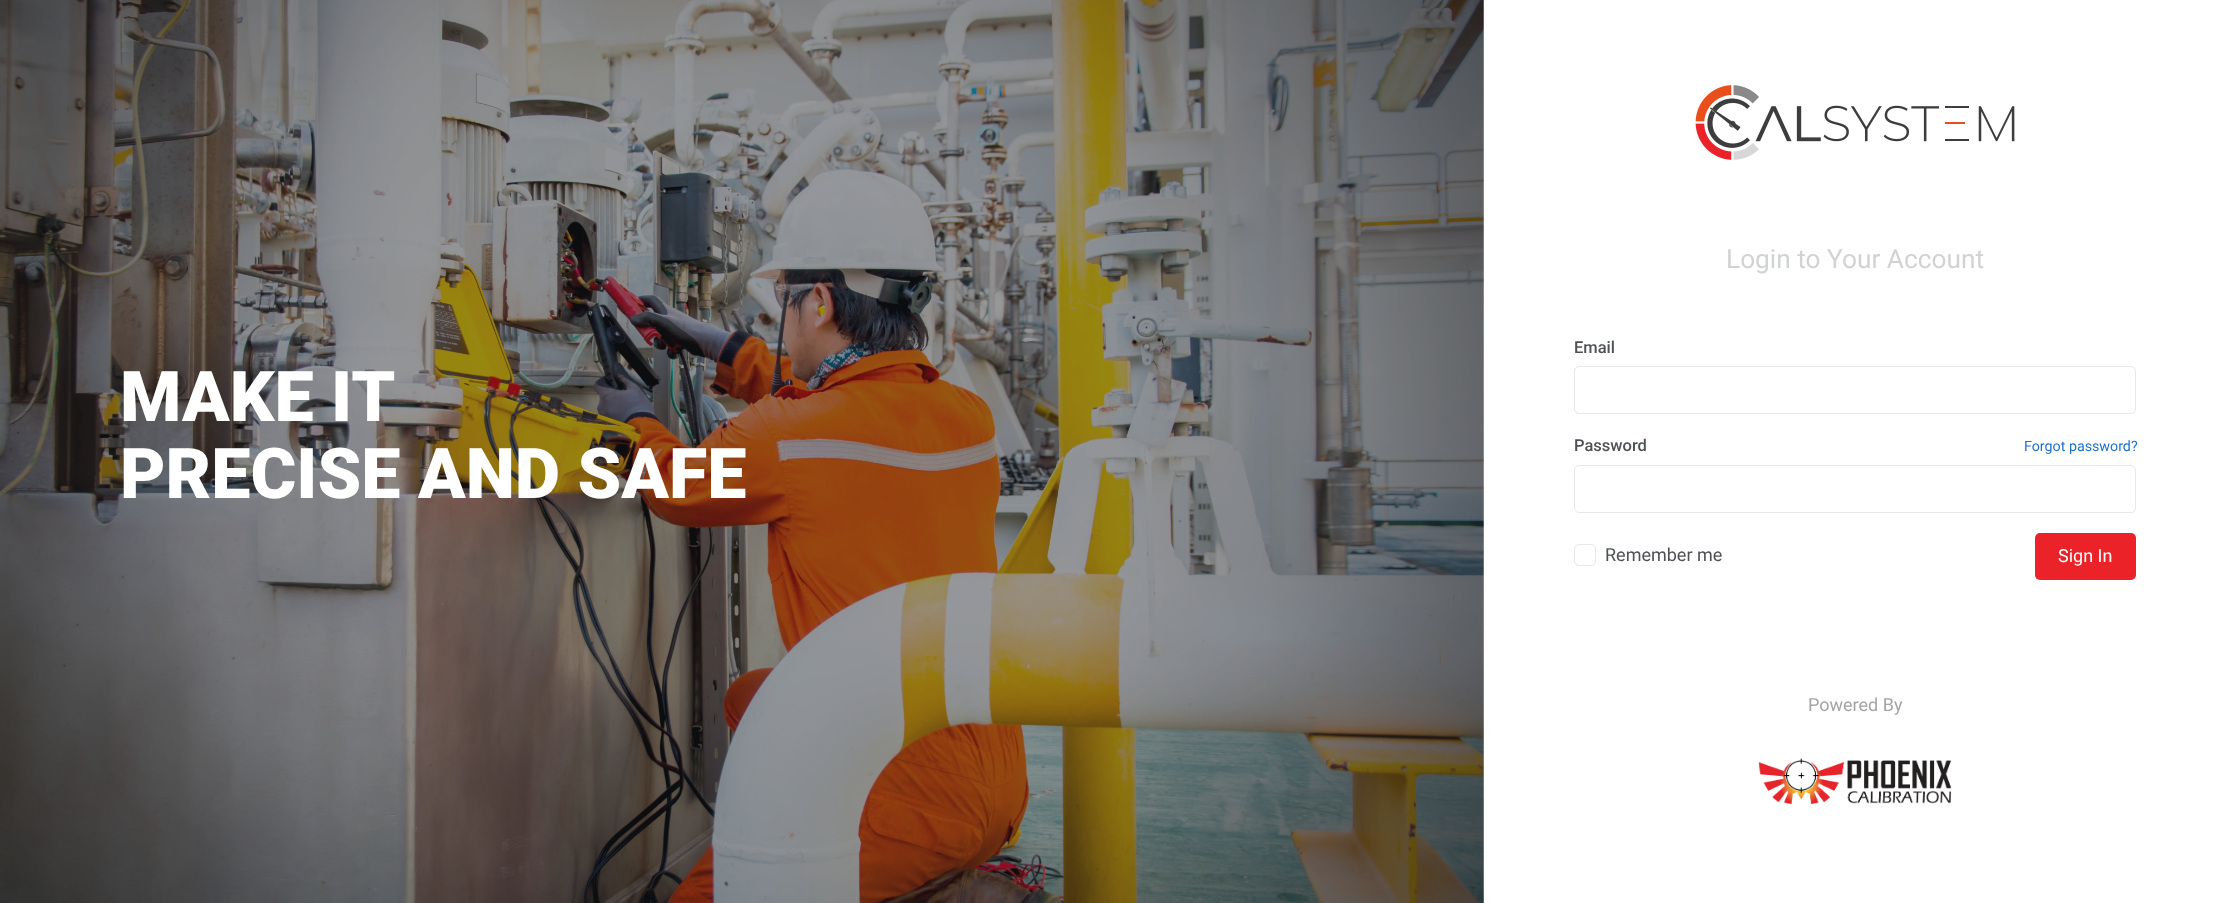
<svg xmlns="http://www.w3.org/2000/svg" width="2226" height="903">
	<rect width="100%" height="100%" fill="#FFFFFF" />
	<image x="0" y="0" width="1484" height="903" href="assets/img1.png" />
	<g font-family="Roboto" font-size="70" font-weight="900" fill="#FFFFFF">
		<text x="120" y="421">MAKE IT</text>
		<text x="120" y="498">PRECISE AND SAFE</text>
	</g>
	<image x="1695" y="85" width="320" height="75" href="assets/img2.png" />
	<text x="1726" y="268" font-family="Roboto" font-size="26.25" fill="#D1D2D3">Login to Your Account</text>
	<text x="1574" y="353" font-family="Roboto" font-size="16.5" font-weight="500" fill="#4E5155">Email</text>
	<rect x="1574.5" y="366.5" width="561" height="47" rx="4.5" fill="none" stroke="#E8E8E9" />
	<text x="1574" y="451" font-family="Roboto" font-size="16.5" font-weight="500" fill="#4E5155">Password</text>
	<text x="2024" y="451" font-family="Roboto" font-size="14.25" fill="#1E70CD">Forgot password?</text>
	<rect x="1574.5" y="465.5" width="561" height="47" rx="4.5" fill="none" stroke="#E8E8E9" />
	<rect x="1574.5" y="544.5" width="21" height="21" rx="4.5" fill="none" stroke="#E8E8E9" />
	<text x="1605" y="561" font-family="Roboto" font-size="18" fill="#4E5155">Remember me</text>
	<rect x="2035" y="533" width="101" height="47" rx="5" fill="#EB2227" />
	<text x="2058" y="562" font-family="Roboto" font-size="18" fill="#FFFFFF">Sign In</text>
	<text x="1808" y="711" font-family="Roboto" font-size="18" fill="#A3A4A6">Powered By</text>
	<image x="1758" y="758" width="194" height="47" href="assets/img3.png" />
</svg>
